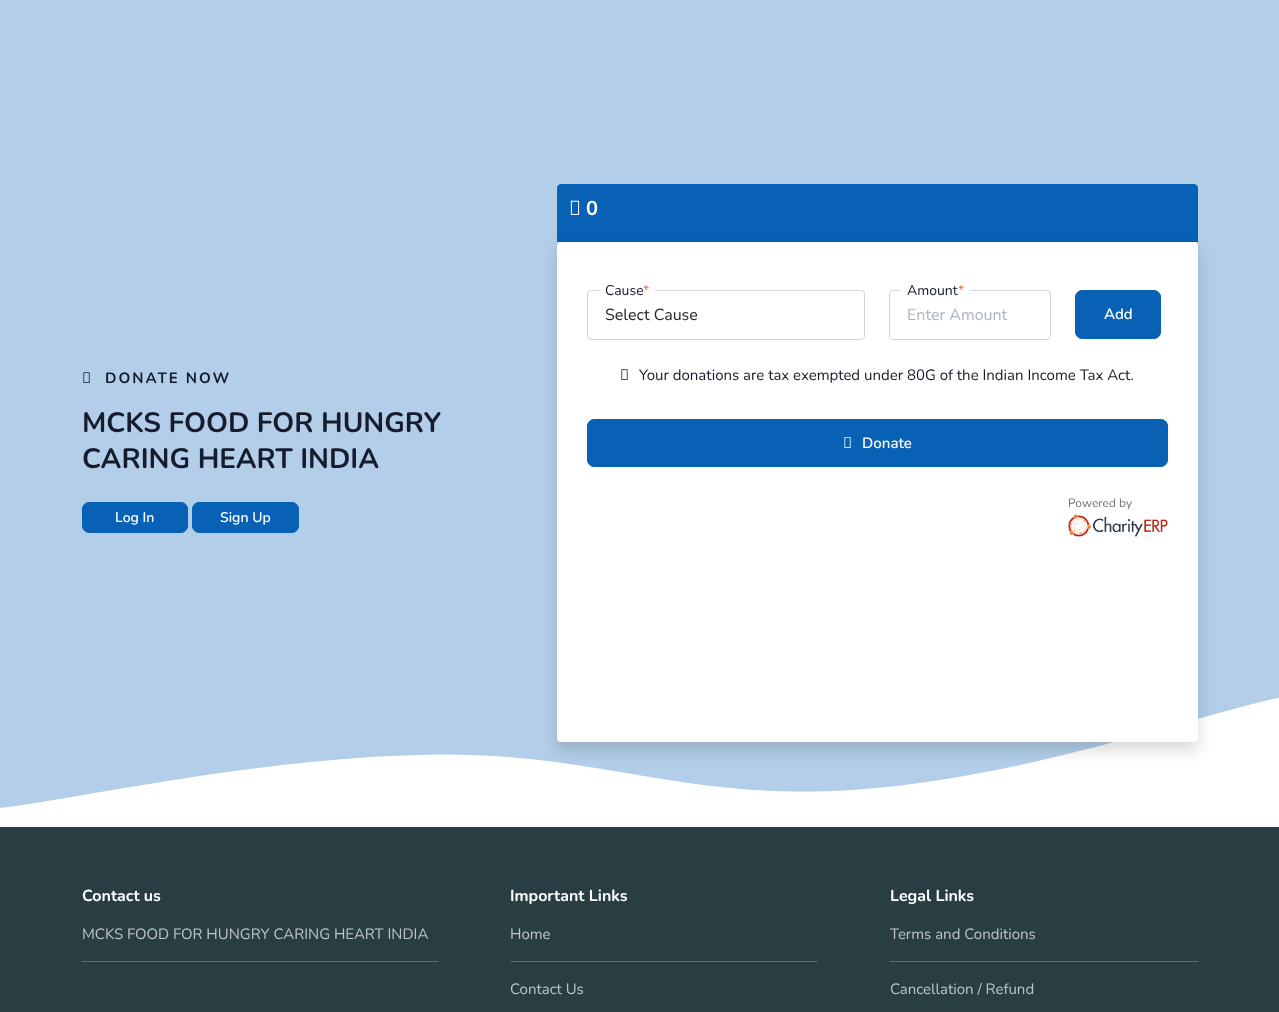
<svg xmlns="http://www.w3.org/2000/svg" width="1279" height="1012">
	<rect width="100%" height="100%" fill="#B2CEE8" />
	<image x="83" y="372" width="7" height="11" href="assets/img1.png" />
	<text x="105" y="383" font-family="Nunito" font-size="15" font-weight="700" letter-spacing="2" fill="#161C2D">DONATE NOW</text>
	<g font-family="Nunito" font-size="28" font-weight="700" fill="#161C2D">
		<text x="82" y="432">MCKS FOOD FOR HUNGRY</text>
		<text x="82" y="468">CARING HEART INDIA</text>
	</g>
	<rect x="82.5" y="502.5" width="105" height="30" rx="6.5" fill="#0861B5" stroke="#0861B5" />
	<text x="115" y="522" font-family="Nunito" font-size="14" font-weight="600" fill="#FFFFFF">Log In</text>
	<rect x="192.5" y="502.5" width="106" height="30" rx="6.5" fill="#0861B5" stroke="#0861B5" />
	<text x="220" y="522" font-family="Nunito" font-size="14" font-weight="600" fill="#FFFFFF">Sign Up</text>
	<path d="M561 184H1194C1196 184 1198 186 1198 188V242H557V188C557 186 559 184 561 184Z" fill="#0861B5" />
	<image x="570" y="200" width="10" height="15" href="assets/img2.png" />
	<text x="586" y="215" font-family="Nunito" font-size="20" font-weight="700" fill="#FFFFFF">0</text>
	<image x="0" y="697" width="1279" height="130" href="assets/img6.png" />
	<rect x="557" y="250" width="641" height="500" rx="4" fill="#000000" fill-opacity="0.15" filter="blur(8px)" />
	<rect x="557" y="242" width="641" height="500" rx="4" fill="#FFFFFF" />
	<rect x="587.5" y="290.5" width="277" height="49" rx="3.5" fill="none" stroke="#D3D6D8" />
	<rect x="599" y="290" width="56" height="1" fill="#FFFFFF" />
	<text x="605" y="295" font-family="Nunito" font-size="14" fill="#161C2D">Cause</text>
	<text x="643" y="295" font-family="Nunito" font-size="14" fill="#FE6847">*</text>
	<text x="605" y="320" font-family="Nunito" font-size="16" fill="#212529">Select Cause</text>
	<rect x="889.5" y="290.5" width="161" height="49" rx="3.5" fill="none" stroke="#D3D6D8" />
	<rect x="901" y="290" width="69" height="1" fill="#FFFFFF" />
	<text x="907" y="295" font-family="Nunito" font-size="14" fill="#161C2D">Amount</text>
	<text x="958" y="295" font-family="Nunito" font-size="14" fill="#FE6847">*</text>
	<text x="907" y="320" font-family="Nunito" font-size="16" fill="#ADB5BD">Enter Amount</text>
	<rect x="1075.5" y="290.5" width="85" height="48" rx="6.5" fill="#0861B5" stroke="#0861B5" />
	<text x="1104" y="319" font-family="Nunito" font-size="15" font-weight="600" fill="#FFFFFF">Add</text>
	<image x="621" y="369" width="7" height="11" href="assets/img3.png" />
	<text x="639" y="380" font-family="Nunito" font-size="15" fill="#161C2D">Your donations are tax exempted under 80G of the Indian Income Tax Act.</text>
	<rect x="587.5" y="419.5" width="580" height="47" rx="6.5" fill="#0861B5" stroke="#0861B5" />
	<image x="844" y="437" width="7" height="11" href="assets/img4.png" />
	<text x="862" y="448" font-family="Nunito" font-size="15" font-weight="600" fill="#FFFFFF">Donate</text>
	<text x="1068" y="507" font-family="Nunito" font-size="12" fill="#6C757D">Powered by</text>
	<image x="1068" y="514" width="100" height="23" href="assets/img5.png" />
	<rect x="0" y="827" width="1279" height="185" fill="#283E43" />
	<text x="82" y="901" font-family="Nunito" font-size="16" font-weight="700" fill="#FFFFFF">Contact us</text>
	<text x="82" y="939" font-family="Nunito" font-size="15" fill="#BFC5C7">MCKS FOOD FOR HUNGRY CARING HEART INDIA</text>
	<rect x="82" y="961" width="356" height="1" fill="#5E6E72" />
	<text x="510" y="901" font-family="Nunito" font-size="16" font-weight="700" fill="#FFFFFF">Important Links</text>
	<text x="510" y="939" font-family="Nunito" font-size="15" fill="#BFC5C7">Home</text>
	<rect x="510" y="961" width="308" height="1" fill="#5E6E72" />
	<text x="510" y="994" font-family="Nunito" font-size="15" fill="#BFC5C7">Contact Us</text>
	<text x="890" y="901" font-family="Nunito" font-size="16" font-weight="700" fill="#FFFFFF">Legal Links</text>
	<text x="890" y="939" font-family="Nunito" font-size="15" fill="#BFC5C7">Terms and Conditions</text>
	<rect x="890" y="961" width="308" height="1" fill="#5E6E72" />
	<text x="890" y="994" font-family="Nunito" font-size="15" fill="#BFC5C7">Cancellation / Refund</text>
</svg>
